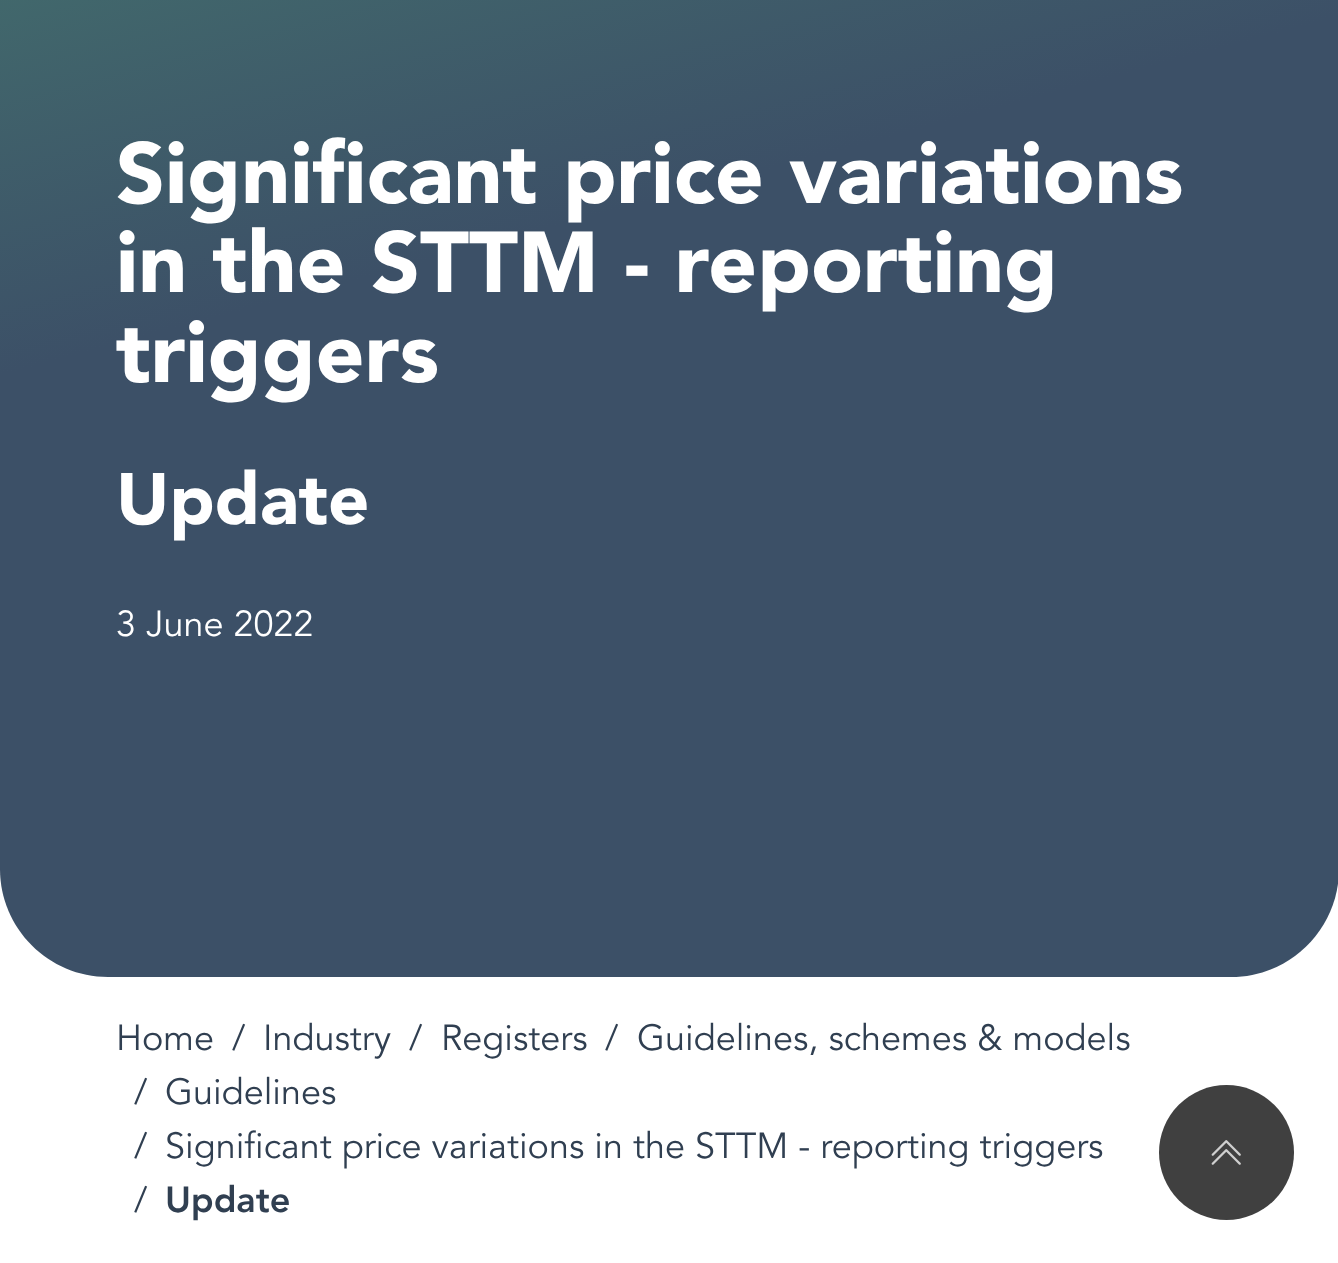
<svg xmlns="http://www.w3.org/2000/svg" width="1338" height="1263">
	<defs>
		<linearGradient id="g1" gradientUnits="userSpaceOnUse" x1="887" y1="1097" x2="451" y2="-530"><stop offset="0" stop-color="#3C5067" /><stop offset="0.55" stop-color="#3C5067" /><stop offset="1" stop-color="#478171" /></linearGradient>
	</defs>
	<rect width="100%" height="100%" fill="#FFFFFF" />
	<path d="M0-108H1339V869C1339 928.5 1290.5 977 1231 977H108C48.5 977 0 928.5 0 869Z" fill="url(#g1)" />
	<g font-family="'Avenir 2'" font-size="85.5" font-weight="900" fill="#FFFFFF">
		<text x="116" y="203">Significant price variations</text>
		<text x="116" y="292">in the STTM - reporting</text>
		<text x="116" y="382">triggers</text>
	</g>
	<text x="116" y="524" font-family="'Avenir 2'" font-size="72" font-weight="900" fill="#FFFFFF">Update</text>
	<text x="116" y="636" font-family="Avenir" font-size="36" fill="#FFFFFF">3 June 2022</text>
	<g font-family="Avenir" font-size="36" fill="#303F51">
		<text x="116" y="1050">Home</text>
		<text x="232" y="1050">/</text>
		<text x="263" y="1050">Industry</text>
		<text x="409" y="1050">/</text>
		<text x="441" y="1050">Registers</text>
		<text x="605" y="1050">/</text>
		<text x="637" y="1050">Guidelines, schemes &amp; models</text>
		<text x="134" y="1104">/</text>
		<text x="165" y="1104">Guidelines</text>
		<text x="134" y="1158">/</text>
		<text x="165" y="1158">Significant price variations in the STTM - reporting triggers</text>
		<text x="134" y="1212">/</text>
	</g>
	<text x="165" y="1212" font-family="Avenir" font-size="36" font-weight="900" fill="#303F51">Update</text>
	<circle cx="1226.5" cy="1152.5" r="67.5" fill="#404040" />
	<image x="1211" y="1140" width="30" height="25" href="assets/img1.png" />
</svg>
